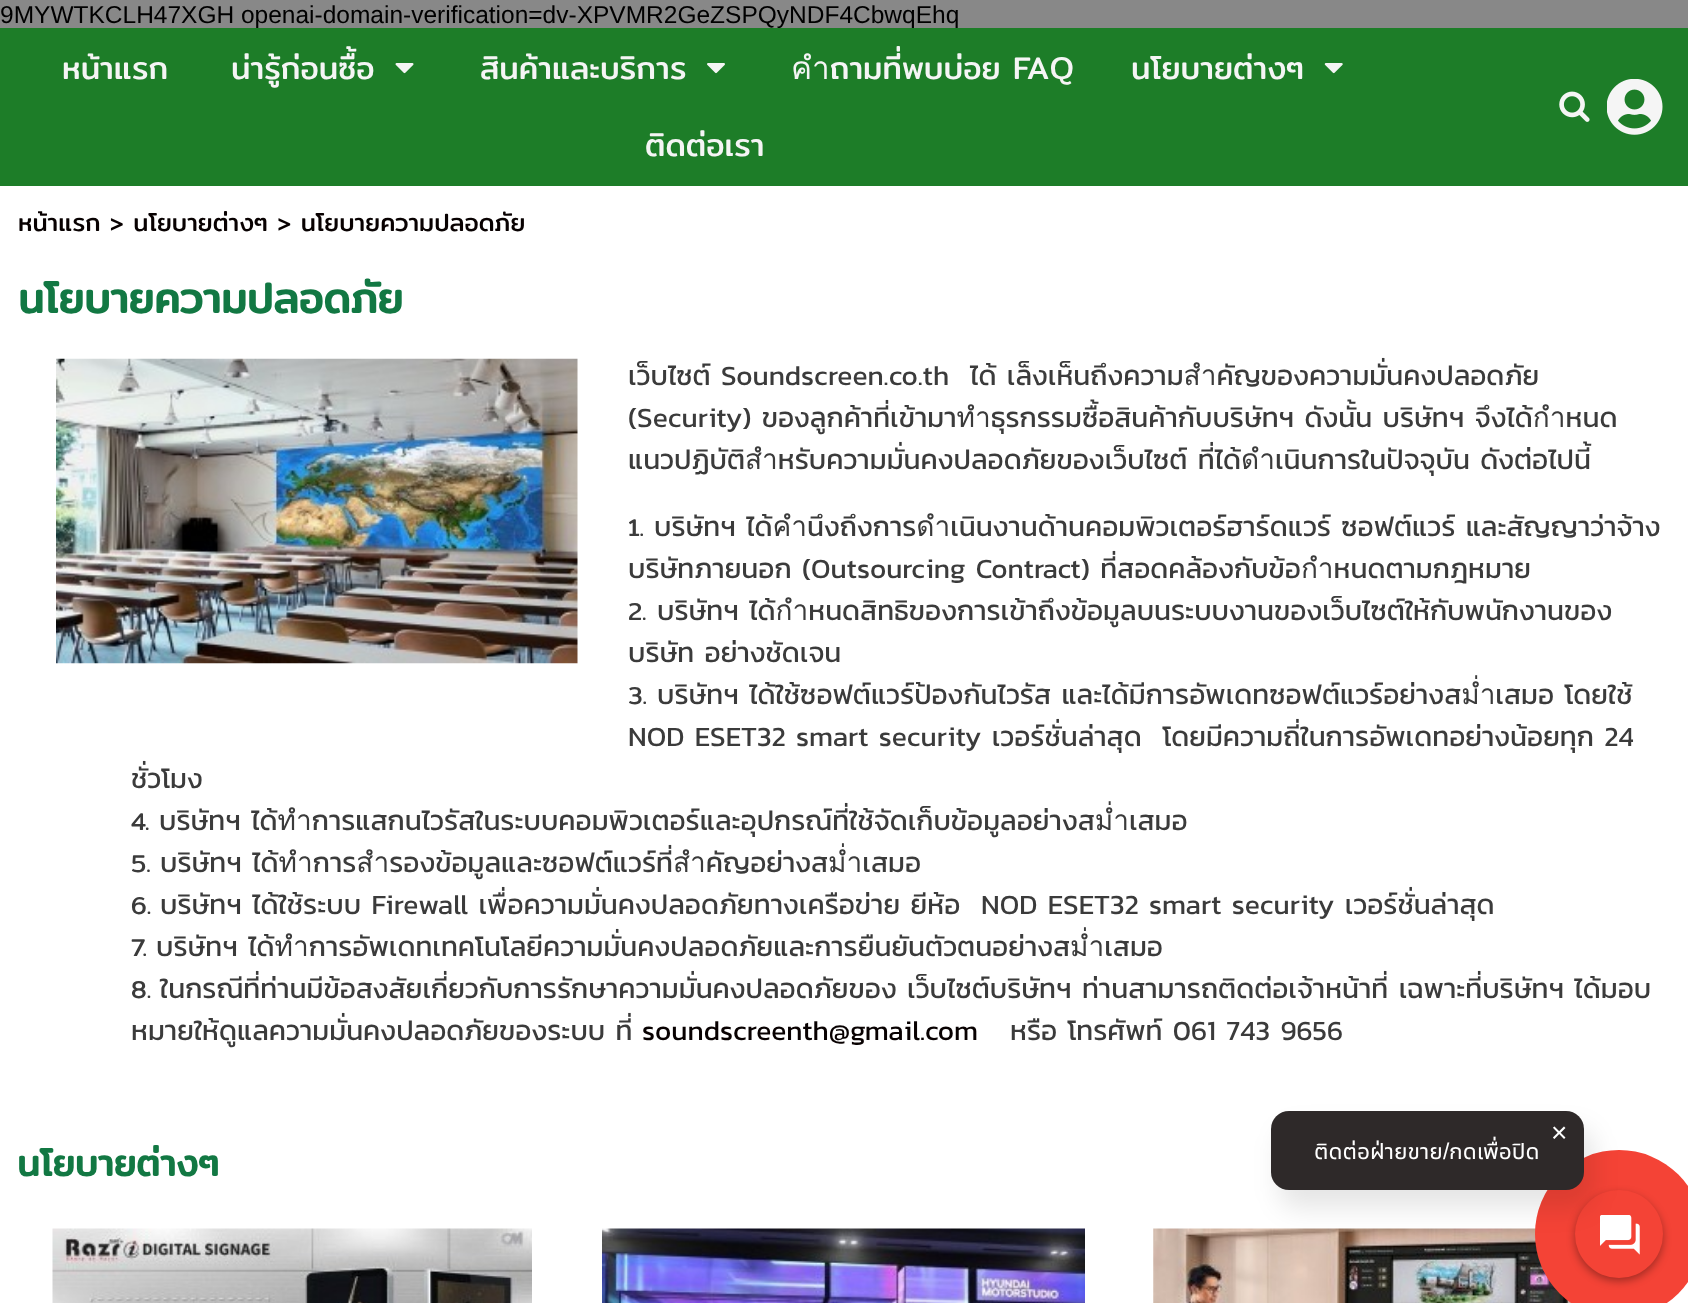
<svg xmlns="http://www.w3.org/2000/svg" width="1688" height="1303">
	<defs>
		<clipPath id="clip1"><rect x="1314" y="1129" width="226" height="44" /></clipPath>
	</defs>
	<rect width="100%" height="100%" fill="#888888" />
	<text x="0" y="23" font-family="Liberation Sans" font-size="24.5" fill="#000000">9MYWTKCLH47XGH openai-domain-verification=dv-XPVMR2GeZSPQyNDF4CbwqEhq</text>
	<rect x="0" y="186" width="1688" height="1117" fill="#FFFFFF" />
	<rect x="0" y="28" width="1688" height="158" fill="#1D7D28" />
	<g font-family="Mitr" font-size="31.5" fill="#F5F5F5">
		<text x="62" y="79">หน้าแรก</text>
		<text x="231" y="79">น่ารู้ก่อนซื้อ</text>
	</g>
	<image x="395" y="63" width="19" height="11" href="assets/img1.png" />
	<text x="480" y="79" font-family="Mitr" font-size="31.5" fill="#F5F5F5">สินค้าและบริการ</text>
	<image x="707" y="63" width="18" height="11" href="assets/img2.png" />
	<g font-family="Mitr" font-size="31.5" fill="#F5F5F5">
		<text x="791" y="79">คำถามที่พบบ่อย FAQ</text>
		<text x="1131" y="79">นโยบายต่างๆ</text>
	</g>
	<image x="1324" y="63" width="19" height="11" href="assets/img3.png" />
	<text x="645" y="156" font-family="Mitr" font-size="31.5" fill="#F5F5F5">ติดต่อเรา</text>
	<image x="1559" y="91" width="31" height="31" href="assets/img4.png" />
	<image x="1607" y="79" width="56" height="56" href="assets/img5.png" />
	<text x="18" y="231" font-family="Mitr" font-size="24.5" fill="#080101">หน้าแรก &gt; นโยบายต่างๆ &gt; นโยบายความปลอดภัย</text>
	<text x="18" y="313" font-family="Mitr" font-size="42" font-weight="700" fill="#127843">นโยบายความปลอดภัย</text>
	<g font-family="Kanit" font-size="28" fill="#3B3B3B">
		<text x="628" y="385">เว็บไซต์ Soundscreen.co.th</text>
		<text x="970" y="385">ได้ เล็งเห็นถึงความสำคัญของความมั่นคงปลอดภัย</text>
		<text x="628" y="427">(Security) ของลูกค้าที่เข้ามาทำธุรกรรมซื้อสินค้ากับบริษัทฯ ดังนั้น บริษัทฯ จึงได้กำหนด</text>
		<text x="628" y="469">แนวปฏิบัติสำหรับความมั่นคงปลอดภัยของเว็บไซต์ ที่ได้ดำเนินการในปัจจุบัน ดังต่อไปนี้</text>
	</g>
	<text x="628" y="536" font-family="Mitr" font-size="24.5" fill="#3B3B3B">1.</text>
	<g font-family="Kanit" font-size="28" fill="#3B3B3B">
		<text x="654" y="536">บริษัทฯ ได้คำนึงถึงการดำเนินงานด้านคอมพิวเตอร์ฮาร์ดแวร์ ซอฟต์แวร์ และสัญญาว่าจ้าง</text>
		<text x="628" y="578">บริษัทภายนอก (Outsourcing Contract) ที่สอดคล้องกับข้อกำหนดตามกฎหมาย</text>
	</g>
	<text x="628" y="620" font-family="Mitr" font-size="24.5" fill="#3B3B3B">2.</text>
	<g font-family="Kanit" font-size="28" fill="#3B3B3B">
		<text x="657" y="620">บริษัทฯ ได้กำหนดสิทธิของการเข้าถึงข้อมูลบนระบบงานของเว็บไซต์ให้กับพนักงานของ</text>
		<text x="628" y="662">บริษัท อย่างชัดเจน</text>
	</g>
	<text x="628" y="704" font-family="Mitr" font-size="24.5" fill="#3B3B3B">3.</text>
	<g font-family="Kanit" font-size="28" fill="#3B3B3B">
		<text x="657" y="704">บริษัทฯ ได้ใช้ซอฟต์แวร์ป้องกันไวรัส และได้มีการอัพเดทซอฟต์แวร์อย่างสม่ำเสมอ โดยใช้</text>
		<text x="628" y="746" xml:space="preserve">NOD ESET32 smart security เวอร์ชั่นล่าสุด  โดยมีความถี่ในการอัพเดทอย่างน้อยทุก 24</text>
		<text x="131" y="788">ชั่วโมง</text>
	</g>
	<text x="131" y="830" font-family="Mitr" font-size="24.5" fill="#3B3B3B">4.</text>
	<text x="159" y="830" font-family="Kanit" font-size="28" fill="#3B3B3B">บริษัทฯ ได้ทำการแสกนไวรัสในระบบคอมพิวเตอร์และอุปกรณ์ที่ใช้จัดเก็บข้อมูลอย่างสม่ำเสมอ</text>
	<text x="131" y="872" font-family="Mitr" font-size="24.5" fill="#3B3B3B">5.</text>
	<text x="160" y="872" font-family="Kanit" font-size="28" fill="#3B3B3B">บริษัทฯ ได้ทำการสำรองข้อมูลและซอฟต์แวร์ที่สำคัญอย่างสม่ำเสมอ</text>
	<text x="131" y="914" font-family="Mitr" font-size="24.5" fill="#3B3B3B">6.</text>
	<text x="160" y="914" font-family="Kanit" font-size="28" fill="#3B3B3B" xml:space="preserve">บริษัทฯ ได้ใช้ระบบ Firewall เพื่อความมั่นคงปลอดภัยทางเครือข่าย ยีห้อ  NOD ESET32 smart security เวอร์ชั่นล่าสุด</text>
	<text x="131" y="956" font-family="Mitr" font-size="24.5" fill="#3B3B3B">7.</text>
	<text x="156" y="956" font-family="Kanit" font-size="28" fill="#3B3B3B">บริษัทฯ ได้ทำการอัพเดทเทคโนโลยีความมั่นคงปลอดภัยและการยืนยันตัวตนอย่างสม่ำเสมอ</text>
	<text x="131" y="998" font-family="Mitr" font-size="24.5" fill="#3B3B3B">8.</text>
	<g font-family="Kanit" font-size="28" fill="#3B3B3B">
		<text x="160" y="998">ในกรณีที่ท่านมีข้อสงสัยเกี่ยวกับการรักษาความมั่นคงปลอดภัยของ เว็บไซต์บริษัทฯ ท่านสามารถติดต่อเจ้าหน้าที่ เฉพาะที่บริษัทฯ ได้มอบ</text>
		<text x="131" y="1040">หมายให้ดูแลความมั่นคงปลอดภัยของระบบ ที่</text>
	</g>
	<text x="642" y="1040" font-family="Kanit" font-size="28" fill="#080101">soundscreenth@gmail.com</text>
	<text x="1010" y="1040" font-family="Kanit" font-size="28" fill="#3B3B3B">หรือ โทรศัพท์ 061 743 9656</text>
	<image x="56" y="358" width="522" height="306" href="assets/img6.png" />
	<text x="17" y="1176" font-family="Mitr" font-size="36.75" font-weight="700" fill="#127843">นโยบายต่างๆ</text>
	<image x="52" y="1228" width="480" height="75" href="assets/img7.png" />
	<image x="602" y="1228" width="483" height="75" href="assets/img8.png" />
	<image x="1153" y="1228" width="419" height="75" href="assets/img9.png" />
	<circle cx="1619" cy="1234" r="84" fill="#F44336" />
	<rect x="1575" y="1194" width="88" height="87" rx="43.5" fill="#000000" fill-opacity="0.35" filter="blur(4.5px)" />
	<circle cx="1619" cy="1234" r="44" fill="#F44336" />
	<image x="1600" y="1215" width="40" height="40" href="assets/img10.png" />
	<rect x="1279" y="1129" width="314" height="79" rx="18" fill="#000000" fill-opacity="0.1" filter="blur(13px)" />
	<rect x="1271" y="1111" width="313" height="79" rx="18" fill="#2E2929" />
	<text x="1551" y="1142" font-family="Liberation Sans" font-size="28" fill="#FFFFFF">×</text>
	<g clip-path="url(#clip1)">
		<text x="1314" y="1159" font-family="Noto Sans Thai UI" font-size="22.75" fill="#FFFFFF">ติดต่อฝ่ายขาย</text>
	</g>
	<text x="1443" y="1159" font-family="Liberation Sans" font-size="22.75" fill="#FFFFFF">/</text>
	<text x="1449" y="1159" font-family="Noto Sans Thai UI" font-size="22.75" fill="#FFFFFF">กดเพื่อปิด</text>
</svg>
